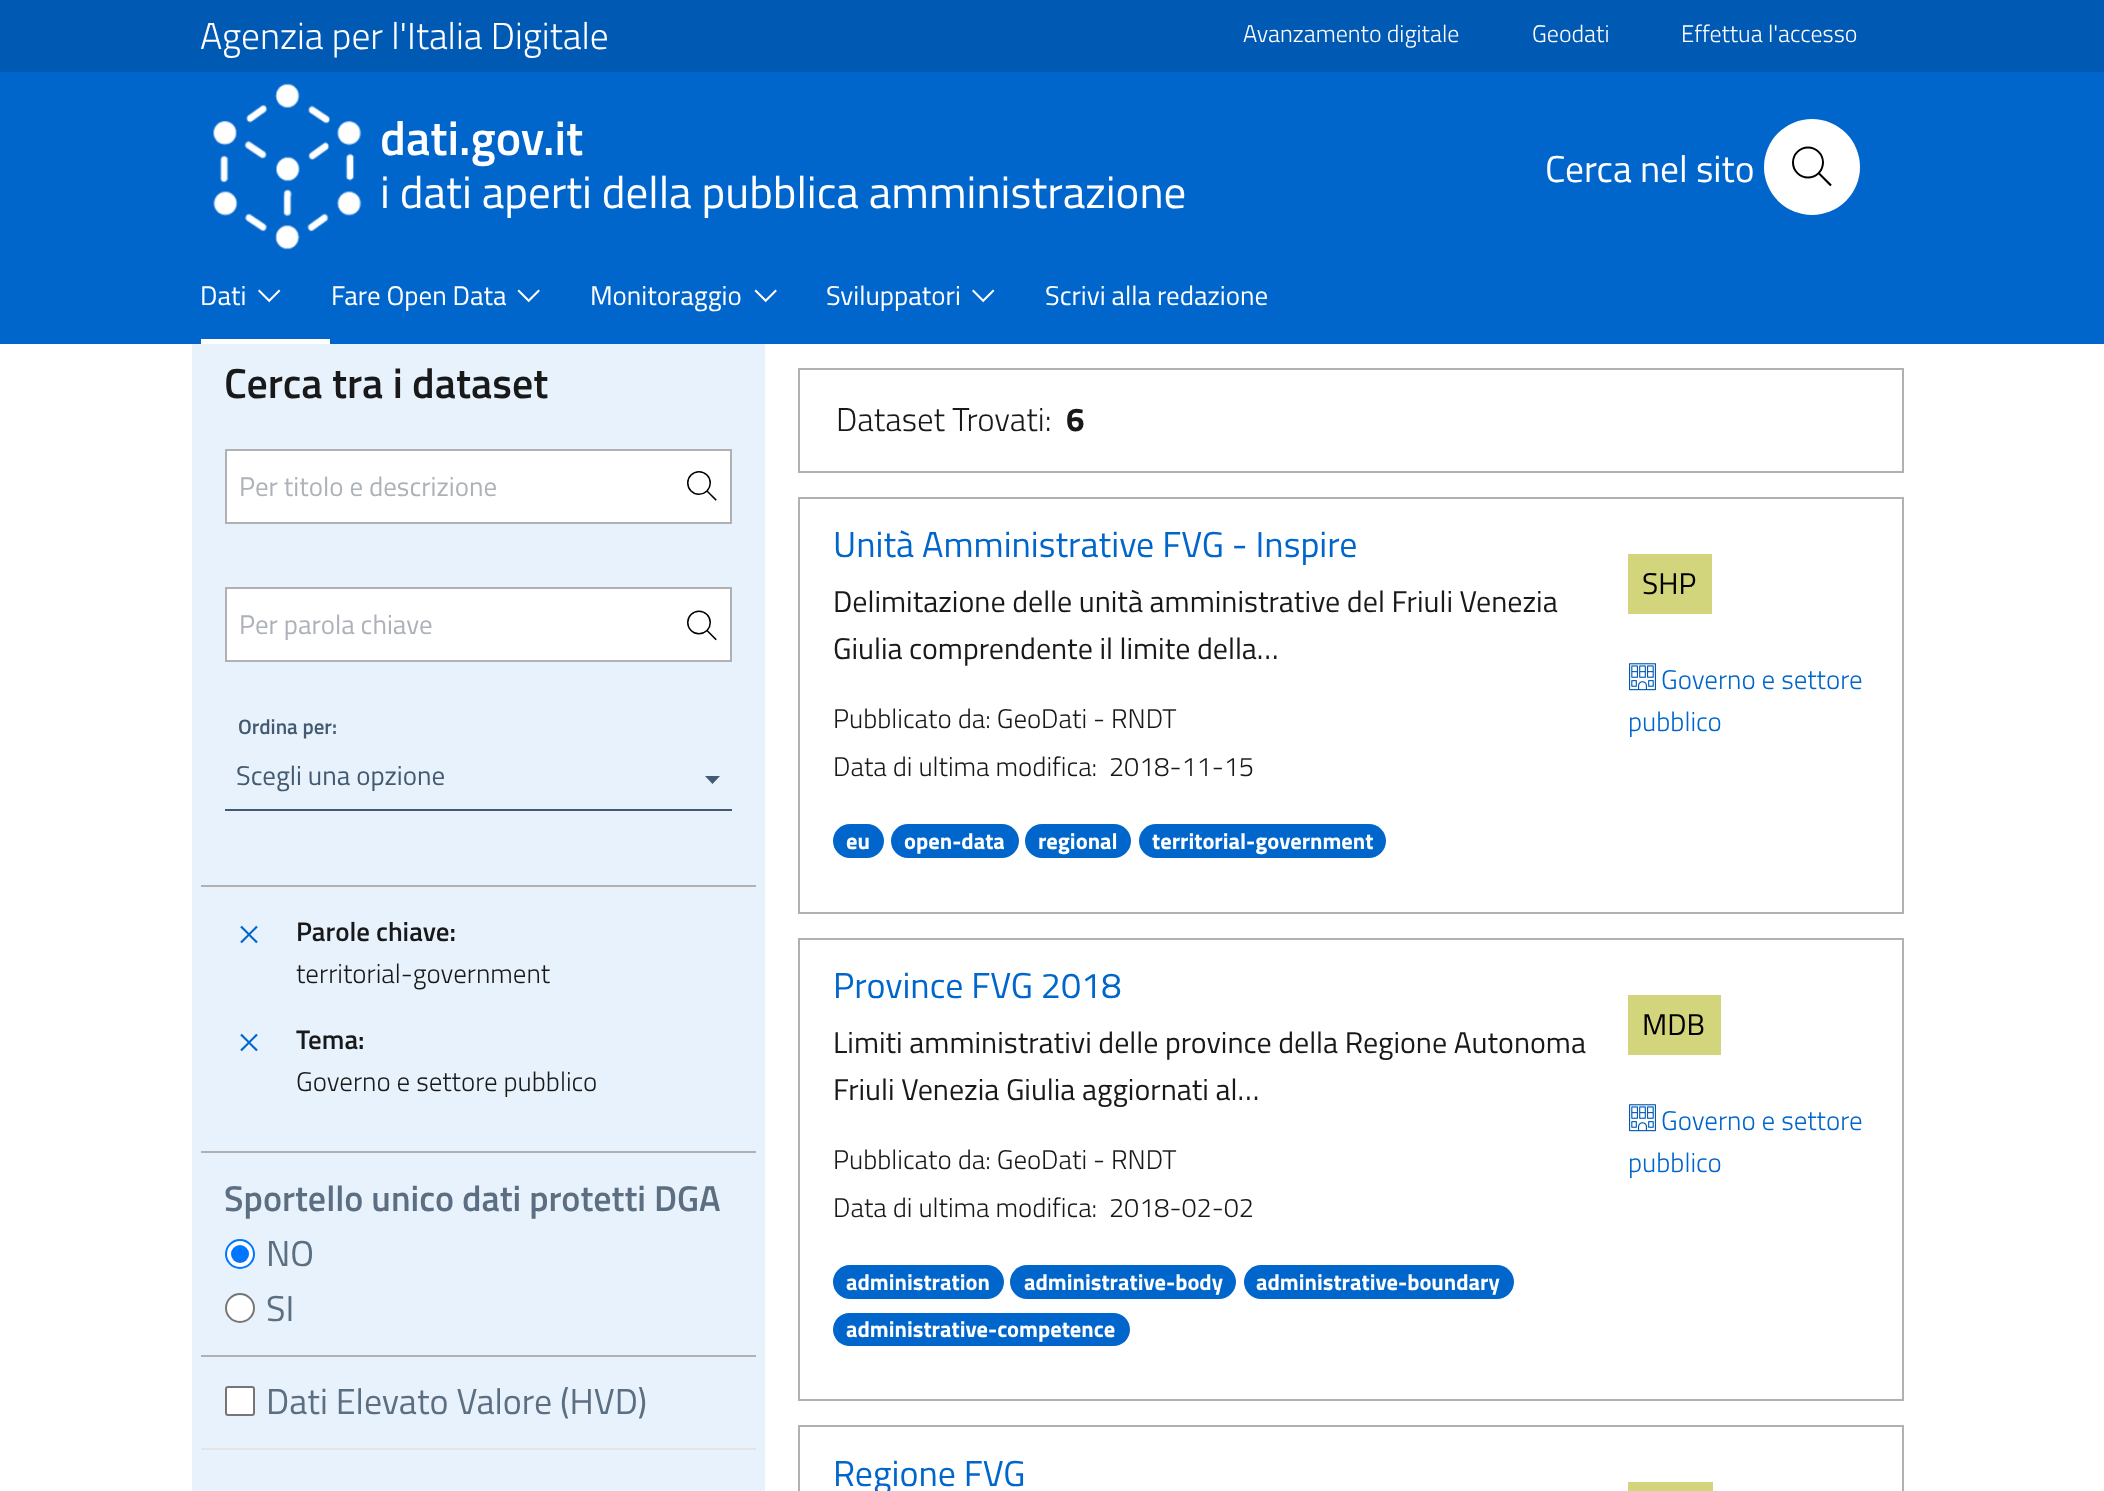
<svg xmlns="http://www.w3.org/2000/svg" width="2104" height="1491">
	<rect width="100%" height="100%" fill="#FFFFFF" />
	<rect x="0" y="0" width="2104" height="72" fill="#0059B3" />
	<text x="200" y="49" font-family="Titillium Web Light" font-size="37.5" font-weight="300" fill="#FFFFFF">Agenzia per l'Italia Digitale</text>
	<g font-family="Titillium Web Light" font-size="24" font-weight="300" fill="#FFFFFF">
		<text x="1243" y="42">Avanzamento digitale</text>
		<text x="1532" y="42">Geodati</text>
		<text x="1681" y="42">Effettua l'accesso</text>
	</g>
	<rect x="0" y="72" width="2104" height="272" fill="#0066CC" />
	<image x="213" y="83" width="149" height="167" href="assets/img1.png" />
	<text x="380" y="155" font-family="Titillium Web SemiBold" font-size="48" font-weight="600" fill="#FFFFFF">dati.gov.it</text>
	<text x="380" y="208" font-family="Titillium Web" font-size="45" fill="#FFFFFF">i dati aperti della pubblica amministrazione</text>
	<text x="1545" y="182" font-family="Titillium Web" font-size="37.5" fill="#FFFFFF">Cerca nel sito</text>
	<circle cx="1812" cy="167" r="48" fill="#FFFFFF" />
	<image x="1792" y="146" width="40" height="41" href="assets/img2.png" />
	<rect x="201" y="339" width="129" height="5" fill="#FFFFFF" />
	<text x="200" y="305" font-family="Titillium Web" font-size="27" fill="#FFFFFF">Dati</text>
	<image x="258" y="289" width="23" height="14" href="assets/img3.png" />
	<text x="331" y="305" font-family="Titillium Web" font-size="27" fill="#FFFFFF">Fare Open Data</text>
	<image x="517" y="289" width="23" height="14" href="assets/img4.png" />
	<text x="590" y="305" font-family="Titillium Web" font-size="27" fill="#FFFFFF">Monitoraggio</text>
	<image x="754" y="289" width="23" height="14" href="assets/img5.png" />
	<text x="826" y="305" font-family="Titillium Web" font-size="27" fill="#FFFFFF">Sviluppatori</text>
	<image x="972" y="289" width="23" height="14" href="assets/img3.png" />
	<text x="1045" y="305" font-family="Titillium Web" font-size="27" fill="#FFFFFF">Scrivi alla redazione</text>
	<rect x="192" y="344" width="573" height="1147" fill="#E8F2FC" />
	<text x="224" y="398" font-family="Titillium Web SemiBold" font-size="42" font-weight="600" fill="#19191A">Cerca tra i dataset</text>
	<rect x="226" y="450" width="505" height="73" fill="#FFFFFF" stroke="#B1B1B3" stroke-width="2" />
	<text x="239" y="496" font-family="Titillium Web" font-size="27" fill="#ADB2B8">Per titolo e descrizione</text>
	<image x="687" y="471" width="30" height="30" href="assets/img6.png" />
	<rect x="226" y="588" width="505" height="73" fill="#FFFFFF" stroke="#B1B1B3" stroke-width="2" />
	<text x="239" y="634" font-family="Titillium Web" font-size="27" fill="#ADB2B8">Per parola chiave</text>
	<image x="687" y="610" width="30" height="31" href="assets/img7.png" />
	<text x="238" y="734" font-family="Titillium Web SemiBold" font-size="21" font-weight="600" fill="#435A70">Ordina per:</text>
	<text x="236" y="785" font-family="Titillium Web" font-size="27" fill="#435A70">Scegli una opzione</text>
	<rect x="225" y="809" width="507" height="2" fill="#435A70" />
	<path d="M705 776H720L712.5 784Z" fill="#435A70" />
	<rect x="201" y="885" width="555" height="2" fill="#B1B1B3" />
	<image x="240" y="925" width="18" height="19" href="assets/img8.png" />
	<text x="296" y="941" font-family="Titillium Web SemiBold" font-size="27" font-weight="600" fill="#19191A">Parole chiave:</text>
	<text x="296" y="983" font-family="Titillium Web Light" font-size="27" font-weight="300" fill="#19191A">territorial-government</text>
	<image x="240" y="1033" width="18" height="19" href="assets/img8.png" />
	<text x="296" y="1049" font-family="Titillium Web SemiBold" font-size="27" font-weight="600" fill="#19191A">Tema:</text>
	<text x="296" y="1091" font-family="Titillium Web Light" font-size="27" font-weight="300" fill="#19191A">Governo e settore pubblico</text>
	<rect x="201" y="1151" width="555" height="2" fill="#B1B1B3" />
	<text x="224" y="1211" font-family="Titillium Web SemiBold" font-size="36" font-weight="600" fill="#5C6F82">Sportello unico dati protetti DGA</text>
	<circle cx="240" cy="1254" r="14" fill="#FFFFFF" stroke="#0075FF" stroke-width="2" />
	<circle cx="240" cy="1254" r="9" fill="#0075FF" />
	<text x="266" y="1266" font-family="Titillium Web" font-size="36" fill="#5C6F82">NO</text>
	<circle cx="240" cy="1308" r="14" fill="#FFFFFF" stroke="#767676" stroke-width="2" />
	<text x="266" y="1321" font-family="Titillium Web" font-size="36" fill="#5C6F82">SI</text>
	<rect x="201" y="1355" width="555" height="2" fill="#B1B1B3" />
	<rect x="226" y="1387" width="28" height="28" rx="2" fill="#FFFFFF" stroke="#767676" stroke-width="2" />
	<text x="266" y="1414" font-family="Titillium Web" font-size="36" fill="#5C6F82">Dati Elevato Valore (HVD)</text>
	<rect x="201" y="1448" width="555" height="2" fill="#E3E4E6" />
	<rect x="799" y="369" width="1104" height="103" fill="none" stroke="#B1B1B3" stroke-width="2" />
	<text x="836" y="431" font-family="Titillium Web Light" font-size="33" font-weight="300" fill="#19191A">Dataset Trovati:</text>
	<text x="1066" y="431" font-family="Titillium Web" font-size="33" font-weight="700" fill="#19191A">6</text>
	<rect x="799" y="498" width="1104" height="415" fill="none" stroke="#B1B1B3" stroke-width="2" />
	<text x="833" y="557" font-family="Titillium Web" font-size="36" fill="#0066CC">Unità Amministrative FVG - Inspire</text>
	<g font-family="Titillium Web" font-size="30" fill="#19191A">
		<text x="833" y="612">Delimitazione delle unità amministrative del Friuli Venezia</text>
		<text x="833" y="659">Giulia comprendente il limite della…</text>
	</g>
	<g font-family="Titillium Web Light" font-size="27" font-weight="300" fill="#19191A">
		<text x="833" y="728">Pubblicato da: GeoDati - RNDT</text>
		<text x="833" y="776">Data di ultima modifica:</text>
		<text x="1109" y="776">2018-11-15</text>
	</g>
	<rect x="833" y="824" width="51" height="34" rx="17" fill="#0066CC" />
	<text x="846" y="849" font-family="Titillium Web" font-size="22.5" font-weight="700" fill="#FFFFFF">eu</text>
	<rect x="891" y="824" width="128" height="34" rx="17" fill="#0066CC" />
	<text x="904" y="849" font-family="Titillium Web" font-size="22.5" font-weight="700" fill="#FFFFFF">open-data</text>
	<rect x="1025" y="824" width="106" height="34" rx="17" fill="#0066CC" />
	<text x="1038" y="849" font-family="Titillium Web" font-size="22.5" font-weight="700" fill="#FFFFFF">regional</text>
	<rect x="1139" y="824" width="247" height="34" rx="17" fill="#0066CC" />
	<text x="1152" y="849" font-family="Titillium Web" font-size="22.5" font-weight="700" fill="#FFFFFF">territorial-government</text>
	<rect x="1628" y="554" width="84" height="60" fill="#D2D57B" />
	<text x="1642" y="594" font-family="Titillium Web" font-size="30" fill="#000000">SHP</text>
	<image x="1629" y="663" width="27" height="28" href="assets/img9.png" />
	<g font-family="Titillium Web Light" font-size="27" font-weight="300" fill="#0066CC">
		<text x="1661" y="689">Governo e settore</text>
		<text x="1628" y="731">pubblico</text>
	</g>
	<rect x="799" y="939" width="1104" height="461" fill="none" stroke="#B1B1B3" stroke-width="2" />
	<text x="833" y="998" font-family="Titillium Web" font-size="36" fill="#0066CC">Province FVG 2018</text>
	<g font-family="Titillium Web" font-size="30" fill="#19191A">
		<text x="833" y="1053">Limiti amministrativi delle province della Regione Autonoma</text>
		<text x="833" y="1100">Friuli Venezia Giulia aggiornati al…</text>
	</g>
	<g font-family="Titillium Web Light" font-size="27" font-weight="300" fill="#19191A">
		<text x="833" y="1169">Pubblicato da: GeoDati - RNDT</text>
		<text x="833" y="1217">Data di ultima modifica:</text>
		<text x="1109" y="1217">2018-02-02</text>
	</g>
	<rect x="833" y="1265" width="171" height="34" rx="17" fill="#0066CC" />
	<text x="846" y="1290" font-family="Titillium Web" font-size="22.5" font-weight="700" fill="#FFFFFF">administration</text>
	<rect x="1010" y="1265" width="226" height="34" rx="17" fill="#0066CC" />
	<text x="1024" y="1290" font-family="Titillium Web" font-size="22.5" font-weight="700" fill="#FFFFFF">administrative-body</text>
	<rect x="1244" y="1265" width="270" height="34" rx="17" fill="#0066CC" />
	<text x="1256" y="1290" font-family="Titillium Web" font-size="22.5" font-weight="700" fill="#FFFFFF">administrative-boundary</text>
	<rect x="833" y="1313" width="297" height="33" rx="16.5" fill="#0066CC" />
	<text x="846" y="1337" font-family="Titillium Web" font-size="22.5" font-weight="700" fill="#FFFFFF">administrative-competence</text>
	<rect x="1628" y="995" width="93" height="60" fill="#D2D57B" />
	<text x="1642" y="1035" font-family="Titillium Web" font-size="30" fill="#000000">MDB</text>
	<image x="1629" y="1104" width="27" height="28" href="assets/img9.png" />
	<g font-family="Titillium Web Light" font-size="27" font-weight="300" fill="#0066CC">
		<text x="1661" y="1130">Governo e settore</text>
		<text x="1628" y="1172">pubblico</text>
	</g>
	<rect x="799" y="1426" width="1104" height="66" fill="none" stroke="#B1B1B3" stroke-width="2" />
	<text x="833" y="1486" font-family="Titillium Web" font-size="36" fill="#0066CC">Regione FVG</text>
	<rect x="1628" y="1482" width="85" height="9" fill="#D2D57B" />
</svg>
